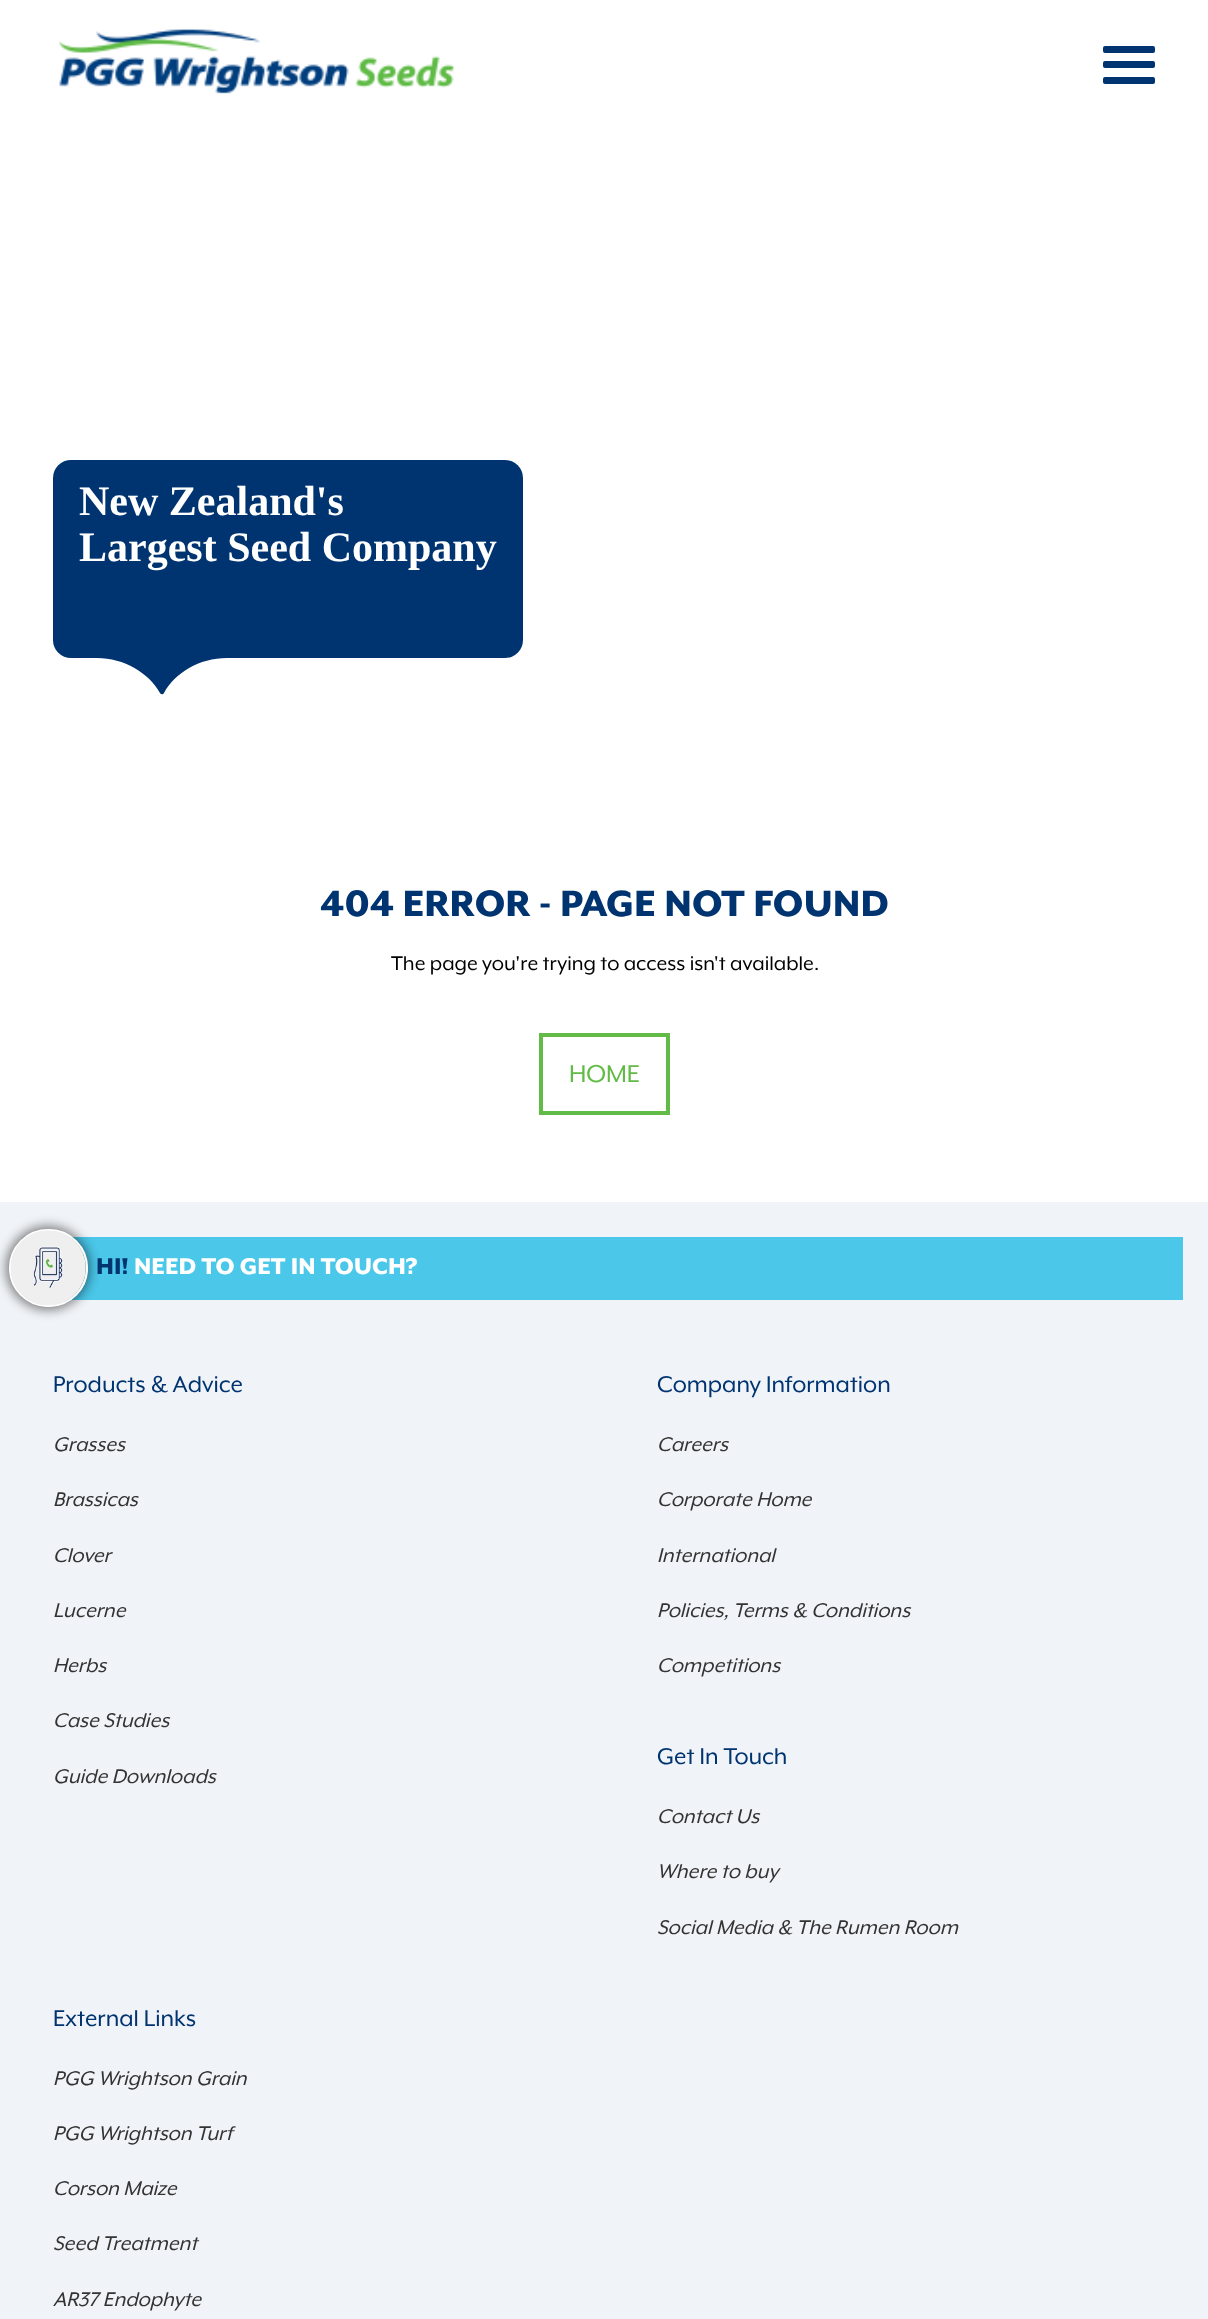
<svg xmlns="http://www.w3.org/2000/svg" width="1208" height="2319">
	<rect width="100%" height="100%" fill="#FFFFFF" />
	<image x="59" y="29" width="395" height="65" href="assets/img1.png" />
	<rect x="1103" y="46" width="52" height="7" rx="2" fill="#003471" />
	<rect x="1103" y="61" width="52" height="7" rx="2" fill="#003471" />
	<rect x="1103" y="77" width="52" height="7" rx="2" fill="#003471" />
	<rect x="53" y="460" width="470" height="198" rx="18" fill="#003471" />
	<g font-family="Liberation Serif" font-size="42" font-weight="700" fill="#FFFFFF">
		<text x="79" y="515">New Zealand's</text>
		<text x="79" y="561">Largest Seed Company</text>
	</g>
	<path d="M227 658H97C124 658 149 673 160 693C160 693 162 696 164 693C175 673 199 658 227 658" fill="#003471" />
	<text x="320" y="916" font-family="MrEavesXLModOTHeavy" font-size="42" font-weight="900" fill="#003471">404 ERROR - PAGE NOT FOUND</text>
	<text x="391" y="970" font-family="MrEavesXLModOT" font-size="22.75" fill="#000000">The page you're trying to access isn't available.</text>
	<rect x="541" y="1035" width="127" height="78" fill="none" stroke="#62BB46" stroke-width="4" />
	<text x="569" y="1082" font-family="MrEavesXLModOT" font-size="28" fill="#62BB46">HOME</text>
	<rect x="0" y="1202" width="1208" height="1117" fill="#F0F3F7" />
	<rect x="26" y="1237" width="1157" height="63" fill="#4AC7E9" />
	<rect x="7" y="1227" width="82" height="82" rx="41" fill="#000000" fill-opacity="0.3" filter="blur(6px)" />
	<rect x="10" y="1230" width="77" height="76" rx="38" fill="none" stroke="#FFFFFF" stroke-width="2" />
	<image x="11" y="1231" width="75" height="74" href="assets/img2.png" />
	<rect x="7" y="1227" width="82" height="82" rx="41" fill="#000000" fill-opacity="0.3" filter="blur(6px)" />
	<rect x="10" y="1230" width="77" height="76" rx="38" fill="none" stroke="#FFFFFF" stroke-width="2" />
	<image x="10" y="1230" width="76" height="76" href="assets/img3.png" />
	<text x="96" y="1274" font-family="MrEavesXLModOTHeavy" font-size="26.25" font-weight="900" fill="#003471">HI!</text>
	<text x="134" y="1274" font-family="MrEavesXLModOTHeavy" font-size="26.25" font-weight="900" fill="#FFFFFF">NEED TO GET IN TOUCH?</text>
	<text x="53" y="1392" font-family="MrEavesXLModOT" font-size="26.25" fill="#003471">Products &amp; Advice</text>
	<g font-family="MrEavesXLModOT" font-size="22.75" font-style="italic" fill="#333333">
		<text x="53" y="1451">Grasses</text>
		<text x="53" y="1506">Brassicas</text>
		<text x="53" y="1562">Clover</text>
		<text x="53" y="1617">Lucerne</text>
		<text x="53" y="1672">Herbs</text>
		<text x="53" y="1727">Case Studies</text>
		<text x="53" y="1783">Guide Downloads</text>
	</g>
	<text x="657" y="1392" font-family="MrEavesXLModOT" font-size="26.25" fill="#003471">Company Information</text>
	<g font-family="MrEavesXLModOT" font-size="22.75" font-style="italic" fill="#333333">
		<text x="657" y="1451">Careers</text>
		<text x="657" y="1506">Corporate Home</text>
		<text x="657" y="1562">International</text>
		<text x="657" y="1617">Policies, Terms &amp; Conditions</text>
		<text x="657" y="1672">Competitions</text>
	</g>
	<text x="657" y="1764" font-family="MrEavesXLModOT" font-size="26.25" fill="#003471">Get In Touch</text>
	<g font-family="MrEavesXLModOT" font-size="22.75" font-style="italic" fill="#333333">
		<text x="657" y="1823">Contact Us</text>
		<text x="657" y="1878">Where to buy</text>
		<text x="657" y="1934">Social Media &amp; The Rumen Room</text>
	</g>
	<text x="53" y="2026" font-family="MrEavesXLModOT" font-size="26.25" fill="#003471">External Links</text>
	<g font-family="MrEavesXLModOT" font-size="22.75" font-style="italic" fill="#333333">
		<text x="53" y="2085">PGG Wrightson Grain</text>
		<text x="53" y="2140">PGG Wrightson Turf</text>
		<text x="53" y="2195">Corson Maize</text>
		<text x="53" y="2250">Seed Treatment</text>
		<text x="53" y="2306">AR37 Endophyte</text>
	</g>
</svg>
